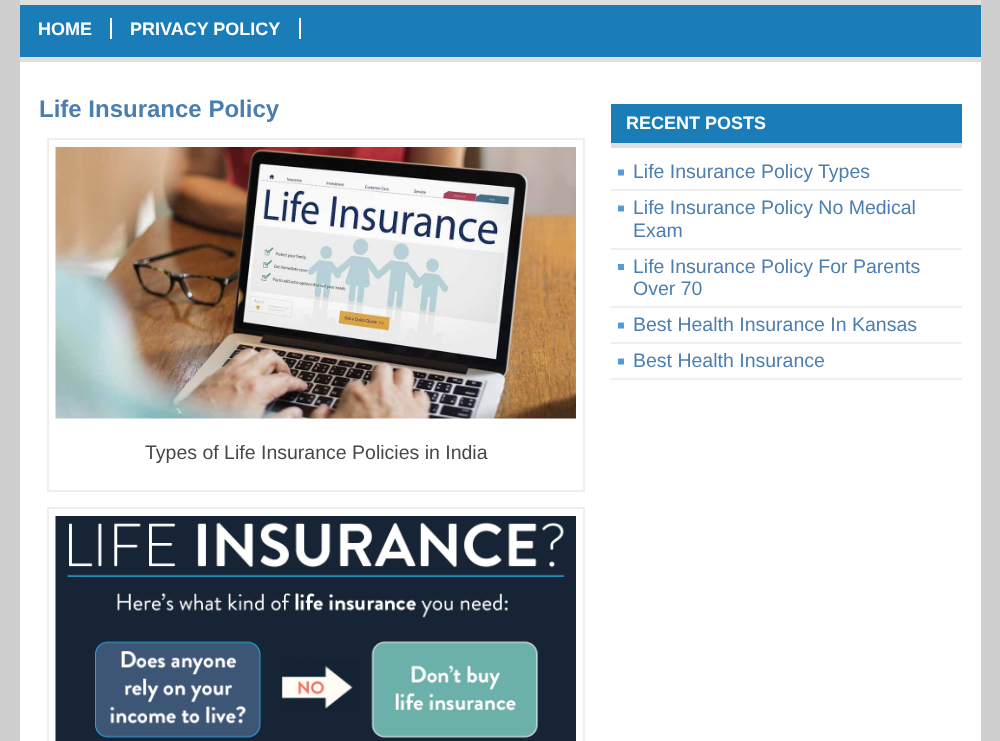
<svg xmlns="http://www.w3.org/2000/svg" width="1000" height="741">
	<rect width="100%" height="100%" fill="#CFCFCF" />
	<rect x="20" y="62" width="961" height="679" fill="#FFFFFF" />
	<rect x="20" y="5" width="961" height="52" fill="#1A7DB7" />
	<rect x="20" y="0" width="961" height="5" fill="#DFDFDF" />
	<rect x="20" y="57" width="961" height="5" fill="#DFDFDF" />
	<rect x="110" y="18" width="2" height="21" fill="#FFFFFF" />
	<text x="38" y="35" font-family="Liberation Sans" font-size="18" font-weight="700" fill="#FFFFFF">HOME</text>
	<rect x="299" y="18" width="2" height="21" fill="#FFFFFF" />
	<text x="130" y="35" font-family="Liberation Sans" font-size="18" font-weight="700" fill="#FFFFFF">PRIVACY POLICY</text>
	<text x="39" y="117" font-family="Liberation Sans" font-size="24" font-weight="700" fill="#4B7EAF">Life Insurance Policy</text>
	<rect x="48" y="139" width="536" height="352" fill="none" stroke="#EEEEEE" stroke-width="2" />
	<image x="55" y="147" width="521" height="272" href="assets/img1.png" />
	<text x="145" y="459" font-family="Liberation Sans" font-size="19.5" fill="#474747">Types of Life Insurance Policies in India</text>
	<rect x="48" y="508" width="536" height="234" fill="none" stroke="#EEEEEE" stroke-width="2" />
	<image x="55" y="516" width="521" height="225" href="assets/img2.png" />
	<rect x="611" y="104" width="351" height="39" fill="#1A7DB7" />
	<rect x="611" y="143" width="351" height="5" fill="#DFDFDF" />
	<text x="626" y="129" font-family="Liberation Sans" font-size="18" font-weight="700" fill="#FFFFFF">RECENT POSTS</text>
	<image x="618" y="169" width="6" height="7" href="assets/img3.png" />
	<rect x="611" y="189" width="351" height="2" fill="#EFEFEF" />
	<text x="633" y="178" font-family="Liberation Sans" font-size="19.5" fill="#4B7EAF">Life Insurance Policy Types</text>
	<image x="618" y="205" width="6" height="7" href="assets/img3.png" />
	<rect x="611" y="248" width="351" height="2" fill="#EFEFEF" />
	<g font-family="Liberation Sans" font-size="19.5" fill="#4B7EAF">
		<text x="633" y="214">Life Insurance Policy No Medical</text>
		<text x="633" y="237">Exam</text>
	</g>
	<rect x="618" y="264" width="6" height="6" fill="#5699DC" />
	<rect x="611" y="306" width="351" height="2" fill="#EFEFEF" />
	<g font-family="Liberation Sans" font-size="19.5" fill="#4B7EAF">
		<text x="633" y="273">Life Insurance Policy For Parents</text>
		<text x="633" y="295">Over 70</text>
	</g>
	<image x="618" y="322" width="6" height="7" href="assets/img3.png" />
	<rect x="611" y="342" width="351" height="2" fill="#EFEFEF" />
	<text x="633" y="331" font-family="Liberation Sans" font-size="19.5" fill="#4B7EAF">Best Health Insurance In Kansas</text>
	<image x="618" y="358" width="6" height="7" href="assets/img3.png" />
	<rect x="611" y="378" width="351" height="2" fill="#EFEFEF" />
	<text x="633" y="367" font-family="Liberation Sans" font-size="19.5" fill="#4B7EAF">Best Health Insurance</text>
</svg>
